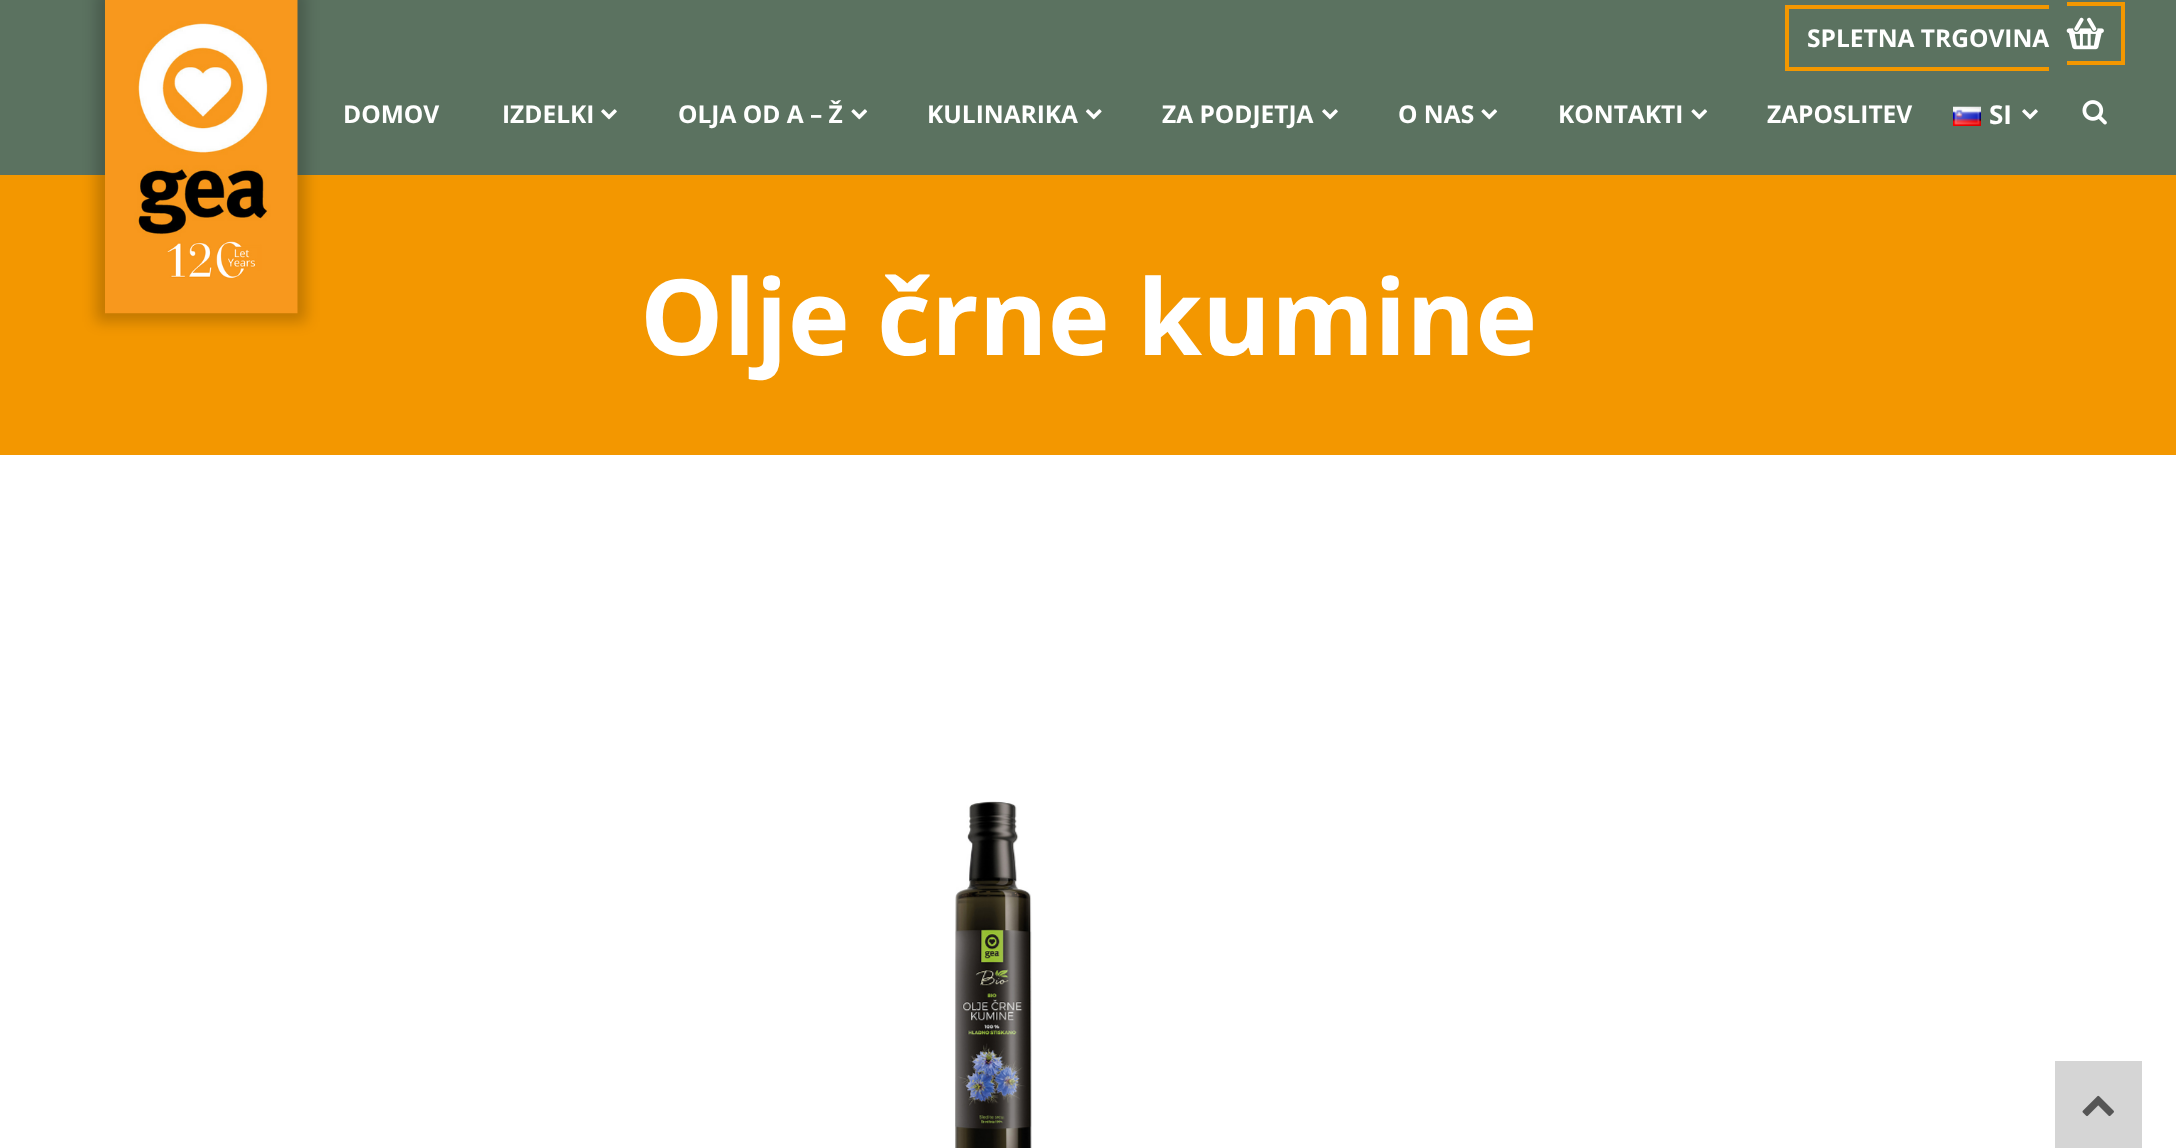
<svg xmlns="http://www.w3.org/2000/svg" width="2176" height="1148">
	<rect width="100%" height="100%" fill="#FFFFFF" />
	<rect x="0" y="0" width="2176" height="175" fill="#5B7260" />
	<text x="1807" y="47" font-family="Open Sans" font-size="24.5" font-weight="700" fill="#FFFFFF">SPLETNA TRGOVINA</text>
	<rect x="1785" y="5" width="264" height="4" fill="#F39700" />
	<rect x="1785" y="67" width="264" height="4" fill="#F39700" />
	<rect x="1785" y="5" width="4" height="65" fill="#F39700" />
	<rect x="2067" y="2" width="58" height="4" fill="#F39700" />
	<rect x="2121" y="2" width="4" height="63" fill="#F39700" />
	<rect x="2067" y="61" width="58" height="4" fill="#F39700" />
	<image x="2066" y="17" width="38" height="33" href="assets/img1.png" />
	<rect x="0" y="175" width="2176" height="280" fill="#F39700" />
	<rect x="96" y="-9" width="210" height="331" fill="#000000" fill-opacity="0.2" filter="blur(7px)" />
	<image x="105" y="0" width="193" height="314" href="assets/img2.png" />
	<g font-family="Open Sans" font-size="24.5" font-weight="700" fill="#FFFFFF">
		<text x="343" y="123">DOMOV</text>
		<text x="502" y="123">IZDELKI</text>
	</g>
	<image x="601" y="109" width="16" height="11" href="assets/img3.png" />
	<text x="678" y="123" font-family="Open Sans" font-size="24.5" font-weight="700" fill="#FFFFFF">OLJA OD A – Ž</text>
	<image x="851" y="109" width="17" height="11" href="assets/img4.png" />
	<text x="927" y="123" font-family="Open Sans" font-size="24.5" font-weight="700" fill="#FFFFFF">KULINARIKA</text>
	<image x="1085" y="109" width="17" height="11" href="assets/img5.png" />
	<text x="1162" y="123" font-family="Open Sans" font-size="24.5" font-weight="700" fill="#FFFFFF">ZA PODJETJA</text>
	<image x="1322" y="109" width="16" height="11" href="assets/img3.png" />
	<text x="1398" y="123" font-family="Open Sans" font-size="24.5" font-weight="700" fill="#FFFFFF">O NAS</text>
	<image x="1481" y="109" width="17" height="11" href="assets/img4.png" />
	<text x="1558" y="123" font-family="Open Sans" font-size="24.5" font-weight="700" fill="#FFFFFF">KONTAKTI</text>
	<image x="1691" y="109" width="17" height="11" href="assets/img4.png" />
	<text x="1767" y="123" font-family="Open Sans" font-size="24.5" font-weight="700" fill="#FFFFFF">ZAPOSLITEV</text>
	<image x="1953" y="106" width="28" height="20" href="assets/img6.png" />
	<text x="1989" y="124" font-family="Open Sans" font-size="26" font-weight="700" fill="#FFFFFF">SI</text>
	<image x="2022" y="109" width="16" height="11" href="assets/img7.png" />
	<image x="2082" y="100" width="25" height="25" href="assets/img8.png" />
	<text x="640" y="355" font-family="Open Sans" font-size="105" font-weight="700" fill="#FFFFFF">Olje črne kumine</text>
	<image x="955" y="801" width="77" height="347" href="assets/img9.png" />
	<rect x="2055" y="1061" width="87" height="87" fill="#D5D5D5" />
	<image x="2082" y="1095" width="32" height="22" href="assets/img10.png" />
</svg>
